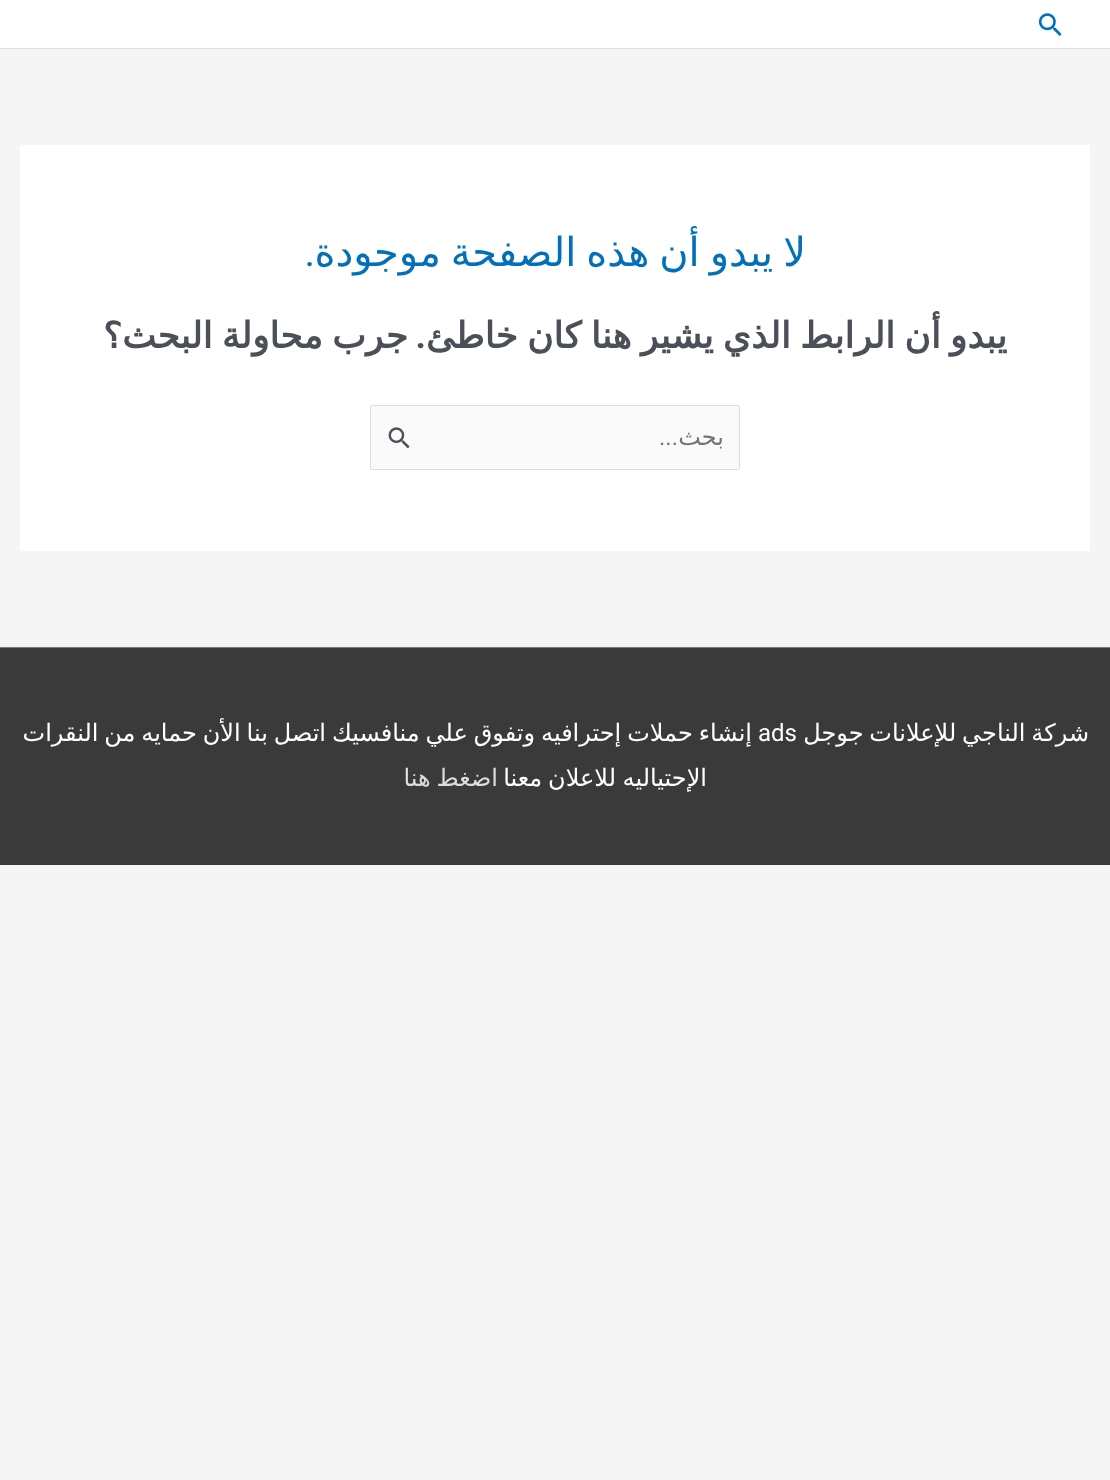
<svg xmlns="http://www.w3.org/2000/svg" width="1110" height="1480">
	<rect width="100%" height="100%" fill="#F5F5F5" />
	<rect x="0" y="0" width="1110" height="48" fill="#FFFFFF" />
	<rect x="0" y="48" width="1110" height="1" fill="#DDDDDD" />
	<image x="1038" y="13" width="24" height="23" href="assets/img1.png" />
	<rect x="20" y="145" width="1070" height="406" fill="#FFFFFF" />
	<text x="806" y="266" word-spacing="-2.75" font-family="DejaVu Sans" font-size="40" direction="rtl" fill="#0170B9">لا يبدو أن هذه الصفحة موجودة</text>
	<text x="315" y="266" font-family="Roboto" font-size="40" direction="rtl" fill="#0170B9">.</text>
	<text x="1007" y="348" word-spacing="-2.25" font-family="DejaVu Sans" font-size="36" font-weight="700" direction="rtl" fill="#4B4F58">يبدو أن الرابط الذي يشير هنا كان خاطئ</text>
	<text x="426" y="348" font-family="Roboto" font-size="36" font-weight="700" direction="rtl" fill="#4B4F58">.</text>
	<text x="408" y="348" word-spacing="-2.25" font-family="DejaVu Sans" font-size="36" font-weight="700" direction="rtl" fill="#4B4F58">جرب محاولة البحث؟</text>
	<rect x="370.5" y="405.5" width="369" height="64" rx="1.5" fill="#FAFAFA" stroke="#DDDDDD" />
	<text x="724" y="445" font-family="DejaVu Sans" font-size="24" direction="rtl" fill="#757575">بحث</text>
	<text x="678" y="445" font-family="Roboto" font-size="24" direction="rtl" fill="#757575">...</text>
	<image x="388" y="427" width="22" height="22" href="assets/img2.png" />
	<rect x="0" y="647" width="1110" height="1" fill="#7A7A7A" />
	<rect x="0" y="648" width="1110" height="217" fill="#3A3A3A" />
	<text x="1089" y="741" word-spacing="-1.75" font-family="DejaVu Sans" font-size="24" direction="rtl" fill="#FFFFFF">شركة الناجي للإعلانات جوجل</text>
	<text x="758" y="741" font-family="Roboto" font-size="24" fill="#FFFFFF">ads</text>
	<g font-family="DejaVu Sans" font-size="24" direction="rtl" fill="#FFFFFF">
		<text x="752" y="741" word-spacing="-1.75">إنشاء حملات إحترافيه وتفوق علي منافسيك اتصل بنا الأن حمايه من النقرات</text>
		<text x="707" y="786">الإحتياليه</text>
		<text x="616" y="786" word-spacing="-1.75">للاعلان معنا</text>
	</g>
	<text x="498" y="786" word-spacing="-1.75" font-family="DejaVu Sans" font-size="24" direction="rtl" fill="#DDDDDD">اضغط هنا</text>
</svg>
